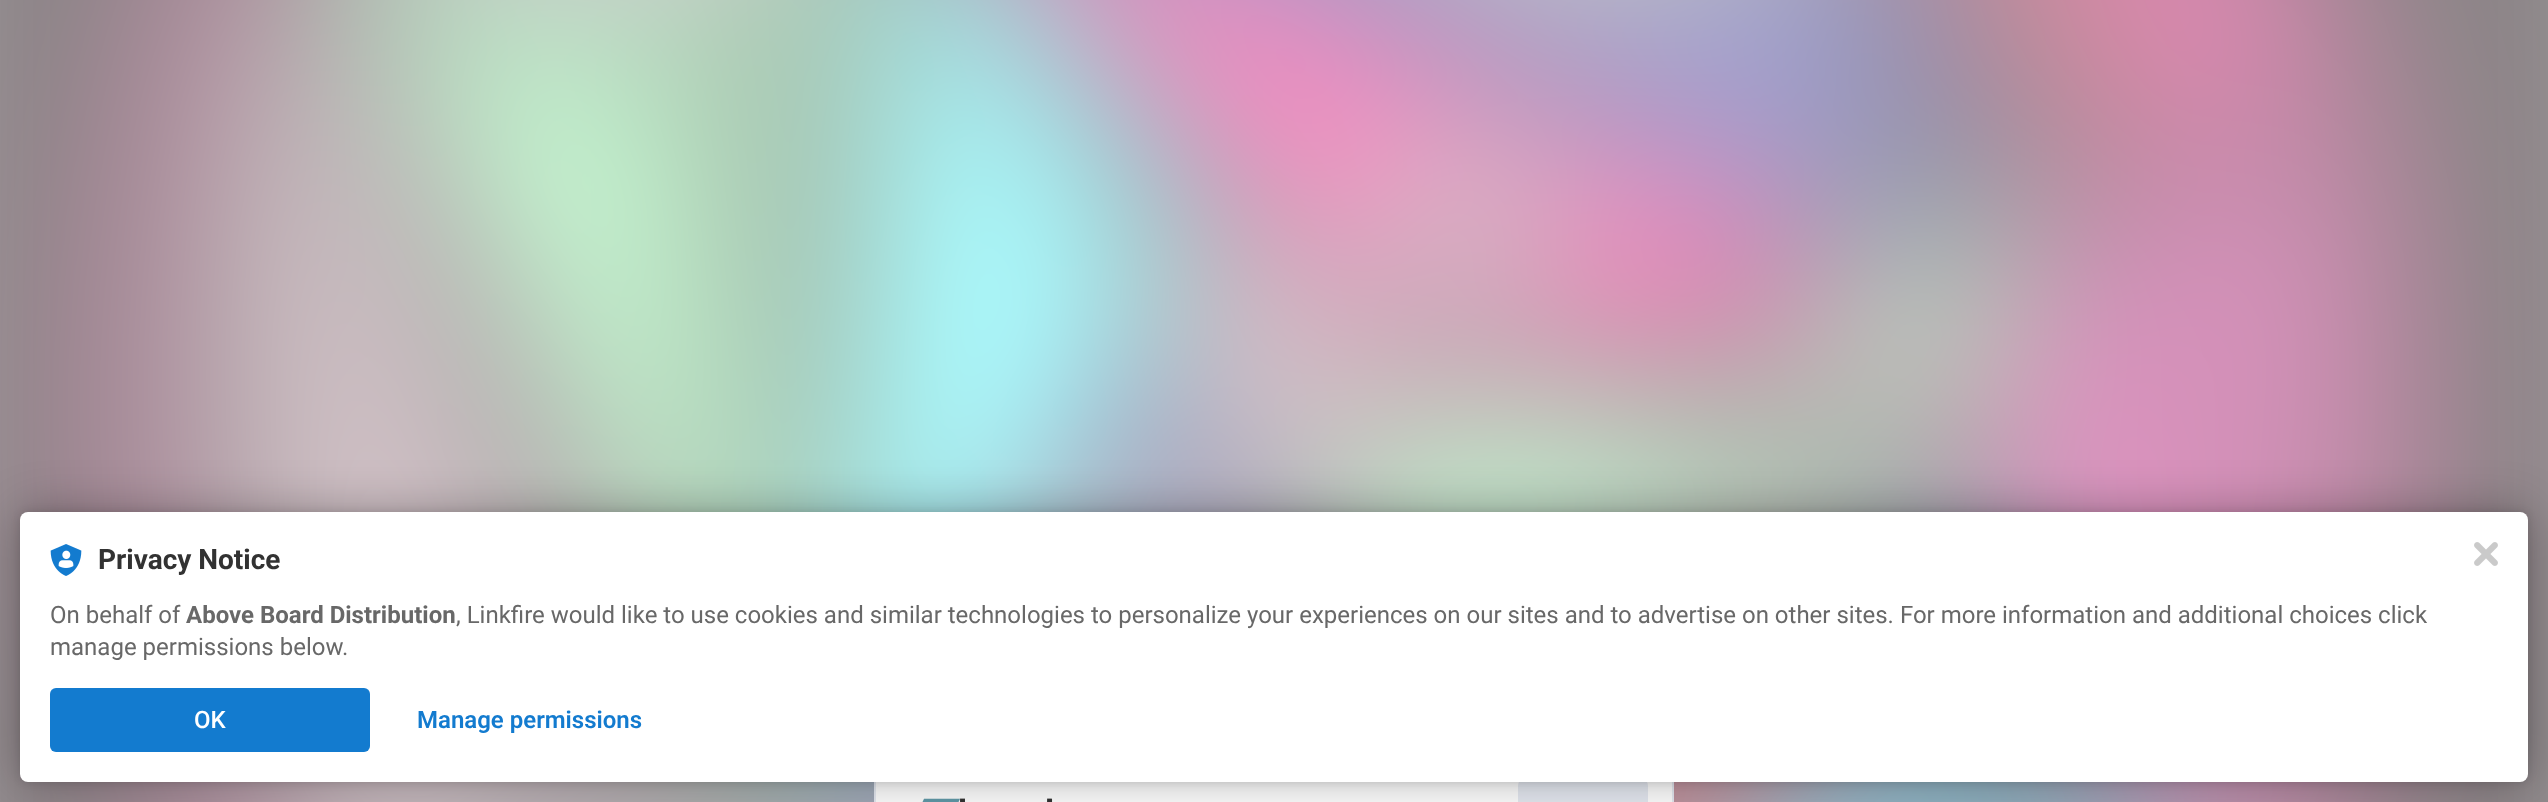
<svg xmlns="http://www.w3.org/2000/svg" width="2548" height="802">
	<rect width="100%" height="100%" fill="#FFFFFF" />
	<image x="0" y="0" width="2548" height="802" href="assets/img1.png" />
	<rect x="875" y="745" width="798" height="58" fill="none" stroke="#E6EAF2" stroke-width="2" />
	<rect x="876" y="782" width="796" height="20" fill="#FFFFFF" />
	<rect x="1518" y="778" width="130" height="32" rx="8" fill="#E6EAF2" />
	<rect x="20" y="512" width="2508" height="270" rx="8" fill="#000000" fill-opacity="0.12" filter="blur(4px)" />
	<image x="922" y="798" width="131" height="4" href="assets/img4.png" />
	<rect x="20" y="512" width="2508" height="270" rx="8" fill="#000000" fill-opacity="0.3" filter="blur(24px)" />
	<rect x="20" y="512" width="2508" height="270" rx="8" fill="#FFFFFF" />
	<image x="50" y="544" width="32" height="32" href="assets/img2.png" />
	<text x="98" y="569" font-family="Roboto" font-size="28" font-weight="700" fill="#323232">Privacy Notice</text>
	<text x="50" y="623" font-family="Roboto" font-size="24" fill="#686868">On behalf of</text>
	<text x="186" y="623" font-family="Roboto" font-size="24" font-weight="700" fill="#686868">Above Board Distribution</text>
	<g font-family="Roboto" font-size="24" fill="#686868">
		<text x="456" y="623">, Linkfire would like to use cookies and similar technologies to personalize your experiences on our sites and to advertise on other sites. For more information and additional choices click</text>
		<text x="50" y="655">manage permissions below.</text>
	</g>
	<rect x="50" y="688" width="320" height="64" rx="6" fill="#137BCF" />
	<text x="194" y="728" font-family="Roboto" font-size="24" font-weight="500" fill="#FFFFFF">OK</text>
	<text x="417" y="728" font-family="Roboto" font-size="24" font-weight="600" fill="#137BCF">Manage permissions</text>
	<image x="2474" y="542" width="24" height="24" href="assets/img3.png" />
</svg>
